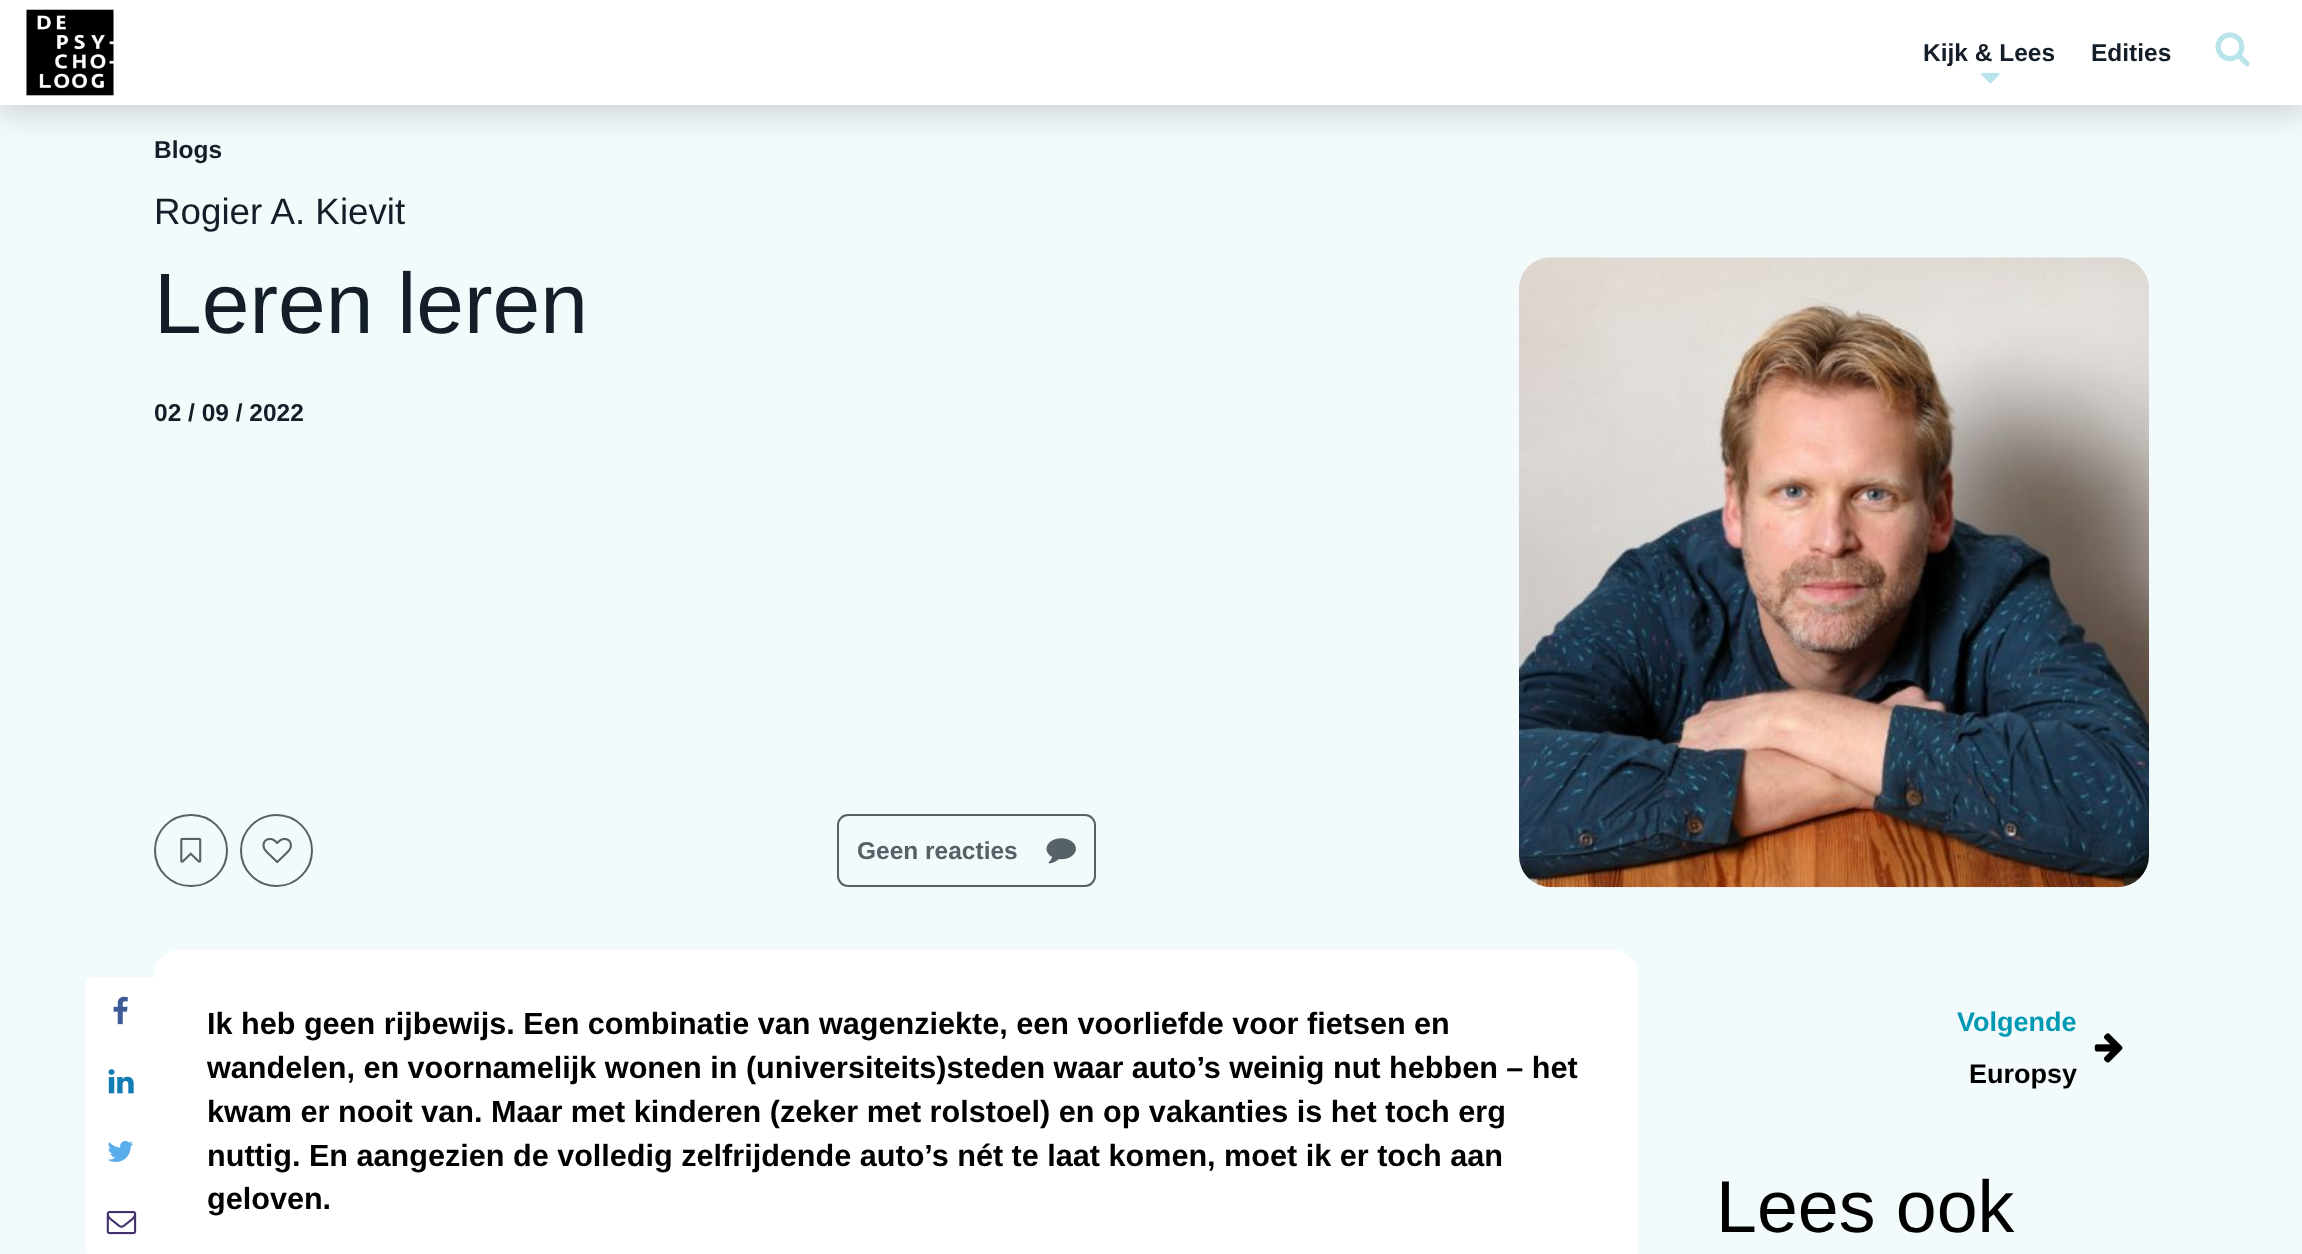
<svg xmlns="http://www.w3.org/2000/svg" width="2302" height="1254">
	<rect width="100%" height="100%" fill="#F2FAFB" />
	<rect x="-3" y="-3" width="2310" height="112" fill="#000000" fill-opacity="0.2" filter="blur(17.5px)" />
	<rect x="0" y="0" width="2302" height="105" fill="#FFFFFF" />
	<image x="26" y="9" width="88" height="87" href="assets/img1.png" />
	<text x="1923" y="61" font-family="Liberation Sans" font-size="24.5" font-weight="700" fill="#141E28">Kijk &amp; Lees</text>
	<image x="1981" y="72" width="19" height="12" href="assets/img2.png" />
	<text x="2091" y="61" font-family="Liberation Sans" font-size="24.5" font-weight="700" fill="#141E28">Edities</text>
	<image x="2215" y="32" width="35" height="35" href="assets/img3.png" />
	<text x="154" y="158" font-family="Liberation Sans" font-size="24.5" font-weight="700" fill="#141E28">Blogs</text>
	<text x="154" y="224" font-family="Liberation Sans" font-size="36.75" fill="#141E28">Rogier A. Kievit</text>
	<text x="154" y="333" font-family="Liberation Sans" font-size="85.75" fill="#141E28">Leren leren</text>
	<text x="154" y="421" font-family="Liberation Sans" font-size="24.5" font-weight="700" fill="#141E28">02 / 09 / 2022</text>
	<rect x="155" y="815" width="72" height="71" rx="35.5" fill="none" stroke="#576067" stroke-width="2" />
	<image x="180" y="837" width="22" height="26" href="assets/img4.png" />
	<circle cx="276.5" cy="850.5" r="35.5" fill="none" stroke="#576067" stroke-width="2" />
	<image x="262" y="837" width="30" height="27" href="assets/img5.png" />
	<rect x="838" y="815" width="257" height="71" rx="10" fill="none" stroke="#576067" stroke-width="2" />
	<text x="857" y="859" font-family="Liberation Sans" font-size="24.5" font-weight="700" fill="#576067">Geen reacties</text>
	<image x="1046" y="838" width="30" height="26" href="assets/img6.png" />
	<image x="1519" y="257" width="630" height="631" href="assets/img7.png" />
	<rect x="154" y="950" width="1484" height="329" rx="25" fill="#FFFFFF" />
	<path d="M93 977H156V1047H86V984C86 980 89 977 93 977Z" fill="#FFFFFF" />
	<image x="113" y="996" width="15" height="29" href="assets/img8.png" />
	<rect x="86" y="1047" width="68" height="140" fill="#FFFFFF" />
	<image x="108" y="1069" width="26" height="25" href="assets/img9.png" />
	<image x="107" y="1141" width="27" height="21" href="assets/img10.png" />
	<path d="M86 1187H156V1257H93C89 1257 86 1254 86 1250Z" fill="#FFFFFF" />
	<image x="106" y="1211" width="31" height="24" href="assets/img11.png" />
	<g font-family="Liberation Sans" font-size="30.6" font-weight="700" fill="#000000">
		<text x="207" y="1034">Ik heb geen rijbewijs. Een combinatie van wagenziekte, een voorliefde voor fietsen en</text>
		<text x="207" y="1078">wandelen, en voornamelijk wonen in (universiteits)steden waar auto’s weinig nut hebben – het</text>
		<text x="207" y="1122">kwam er nooit van. Maar met kinderen (zeker met rolstoel) en op vakanties is het toch erg</text>
		<text x="207" y="1166">nuttig. En aangezien de volledig zelfrijdende auto’s nét te laat komen, moet ik er toch aan</text>
		<text x="207" y="1209">geloven.</text>
	</g>
	<text x="1957" y="1031" font-family="Liberation Sans" font-size="27" font-weight="700" fill="#0099B4">Volgende</text>
	<text x="1969" y="1083" font-family="Liberation Sans" font-size="27" font-weight="700" fill="#000000">Europsy</text>
	<image x="2094" y="1033" width="29" height="30" href="assets/img12.png" />
	<text x="1716" y="1232" font-family="Liberation Sans" font-size="73.5" fill="#000000">Lees ook</text>
</svg>
